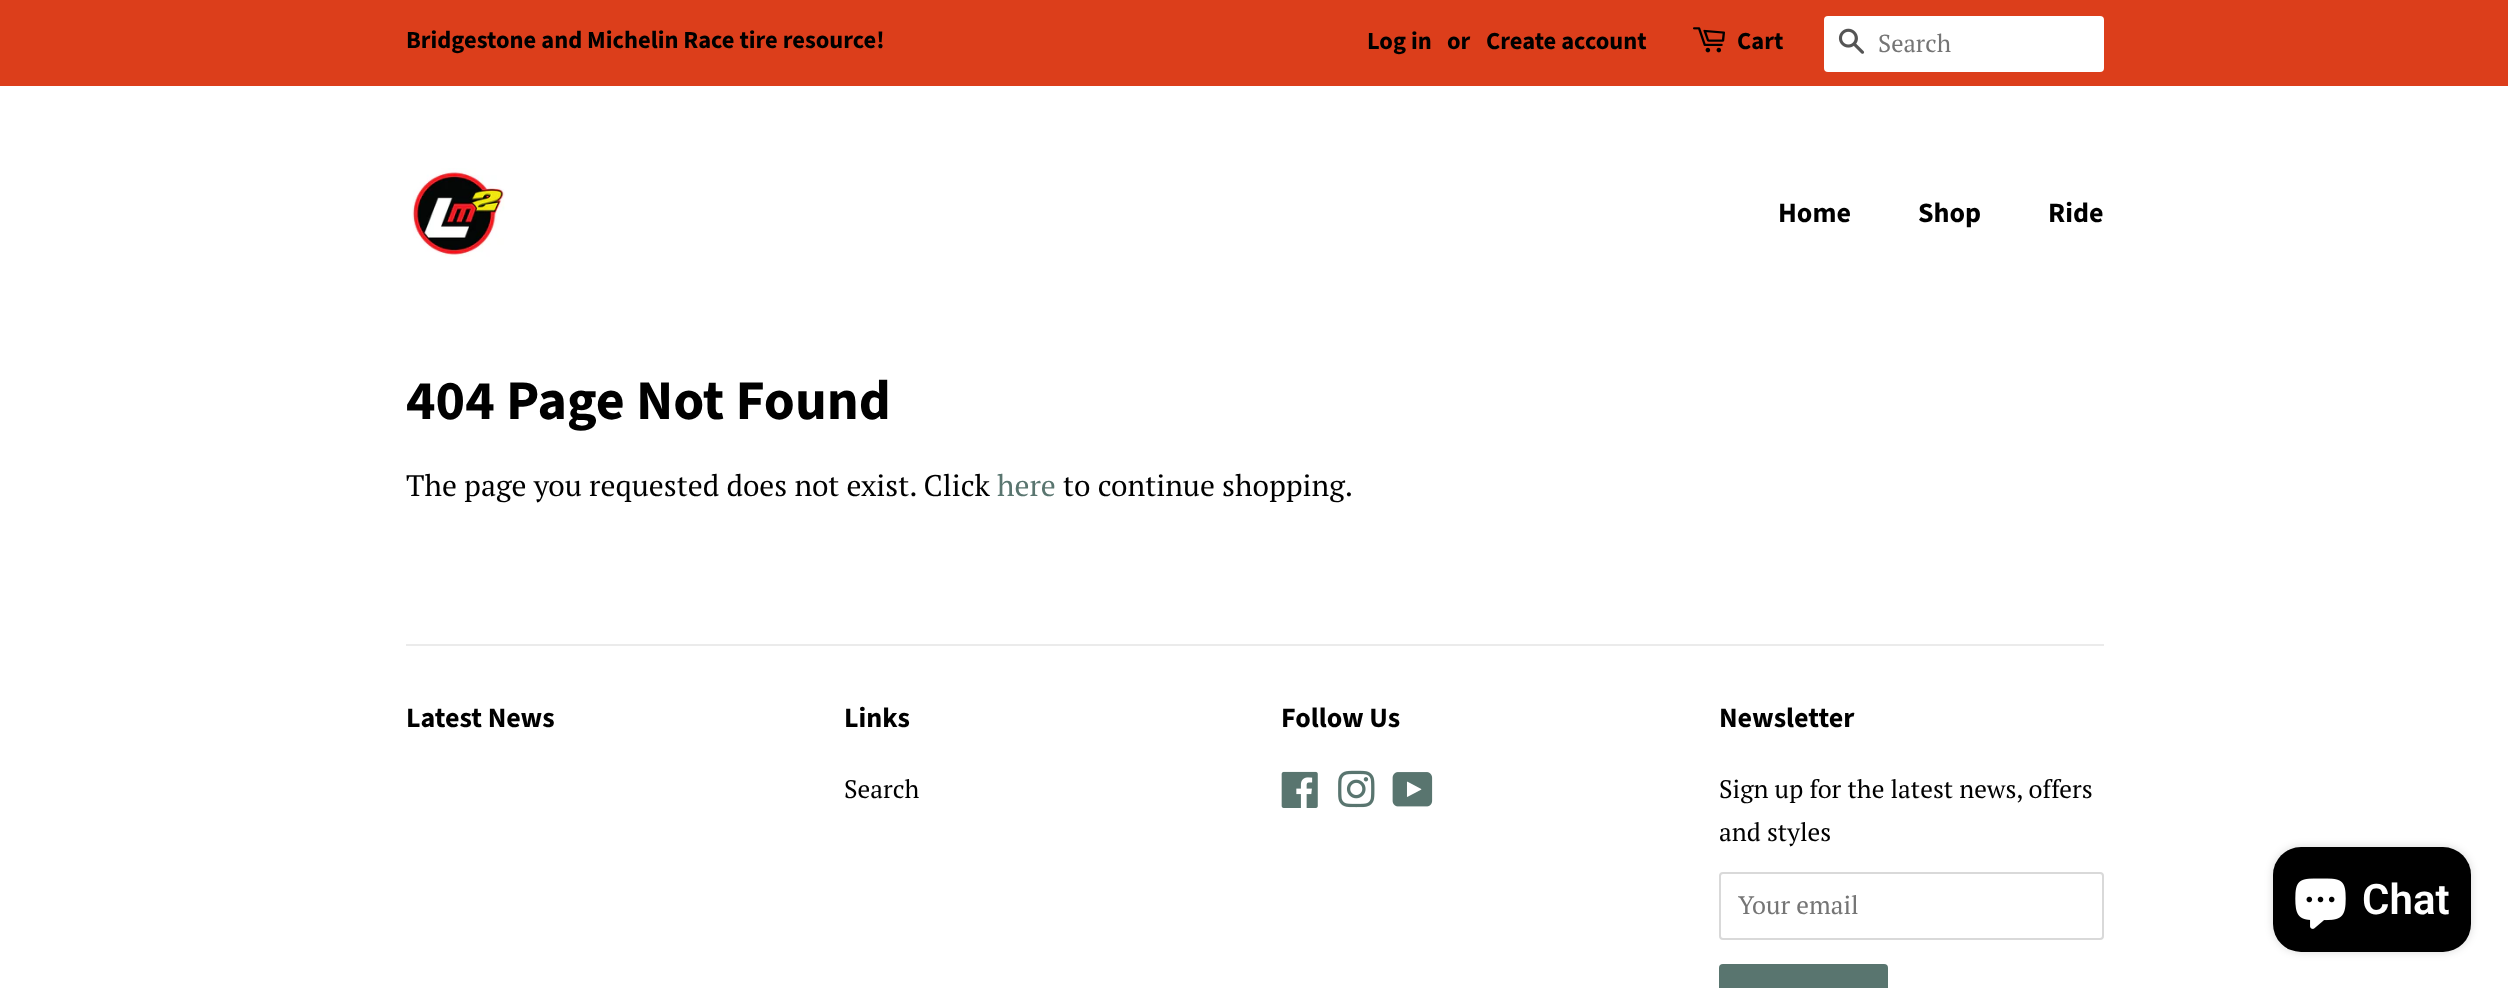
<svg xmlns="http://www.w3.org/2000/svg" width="2508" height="988">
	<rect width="100%" height="100%" fill="#FFFFFF" />
	<rect x="0" y="0" width="2508" height="86" fill="#DC3E1B" />
	<g font-family="Source Sans Pro" font-size="24.5" font-weight="700" fill="#000000">
		<text x="406" y="48">Bridgestone and Michelin Race tire resource!</text>
		<text x="1367" y="49">Log in</text>
		<text x="1447" y="49">or</text>
		<text x="1486" y="49">Create account</text>
	</g>
	<image x="1693" y="27" width="32" height="26" href="assets/img1.png" />
	<text x="1737" y="49" font-family="Source Sans Pro" font-size="24.5" font-weight="700" fill="#000000">Cart</text>
	<rect x="1824" y="16" width="280" height="56" rx="4" fill="#FFFFFF" />
	<image x="1838" y="28" width="27" height="26" href="assets/img2.png" />
	<text x="1878" y="52" font-family="PT Serif" font-size="24.5" fill="#757575">Search</text>
	<image x="412" y="168" width="93" height="89" href="assets/img3.png" />
	<g font-family="Source Sans Pro" font-size="28" font-weight="700" fill="#000000">
		<text x="1778" y="222">Home</text>
		<text x="1918" y="222">Shop</text>
		<text x="2048" y="222">Ride</text>
	</g>
	<text x="406" y="419" font-family="Source Sans Pro" font-size="56" font-weight="700" fill="#000000">404 Page Not Found</text>
	<text x="406" y="496" font-family="PT Serif" font-size="29.75" fill="#000000">The page you requested does not exist. Click</text>
	<text x="997" y="496" font-family="PT Serif" font-size="29.75" fill="#59756F">here</text>
	<text x="1063" y="496" font-family="PT Serif" font-size="29.75" fill="#000000">to continue shopping.</text>
	<rect x="406" y="644" width="1698" height="2" fill="#EBEBEB" />
	<g font-family="Source Sans Pro" font-size="28" font-weight="700" fill="#000000">
		<text x="406" y="727">Latest News</text>
		<text x="844" y="727">Links</text>
	</g>
	<text x="844" y="798" font-family="PT Serif" font-size="25.25" fill="#000000">Search</text>
	<text x="1281" y="727" font-family="Source Sans Pro" font-size="28" font-weight="700" fill="#000000">Follow Us</text>
	<image x="1281" y="771" width="37" height="37" href="assets/img4.png" />
	<image x="1338" y="770" width="37" height="38" href="assets/img5.png" />
	<image x="1392" y="772" width="41" height="35" href="assets/img6.png" />
	<text x="1719" y="727" font-family="Source Sans Pro" font-size="28" font-weight="700" fill="#000000">Newsletter</text>
	<g font-family="PT Serif" font-size="25.25" fill="#000000">
		<text x="1719" y="798">Sign up for the latest news, offers</text>
		<text x="1719" y="841">and styles</text>
	</g>
	<rect x="1720" y="873" width="383" height="66" rx="3" fill="none" stroke="#D9D9D9" stroke-width="2" />
	<text x="1738" y="914" font-family="PT Serif" font-size="25.25" fill="#757575">Your email</text>
	<rect x="1719" y="964" width="169" height="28" rx="4" fill="#59756F" />
	<rect x="2273" y="847" width="198" height="105" rx="28" fill="#000000" fill-opacity="0.15" filter="blur(4.5px)" />
	<rect x="2273" y="847" width="198" height="105" rx="28" fill="#000000" />
	<image x="2295" y="878" width="51" height="51" href="assets/img7.png" />
	<text x="2362" y="914" font-family="Roboto" font-size="42" font-weight="600" fill="#FFFFFF">Chat</text>
</svg>
